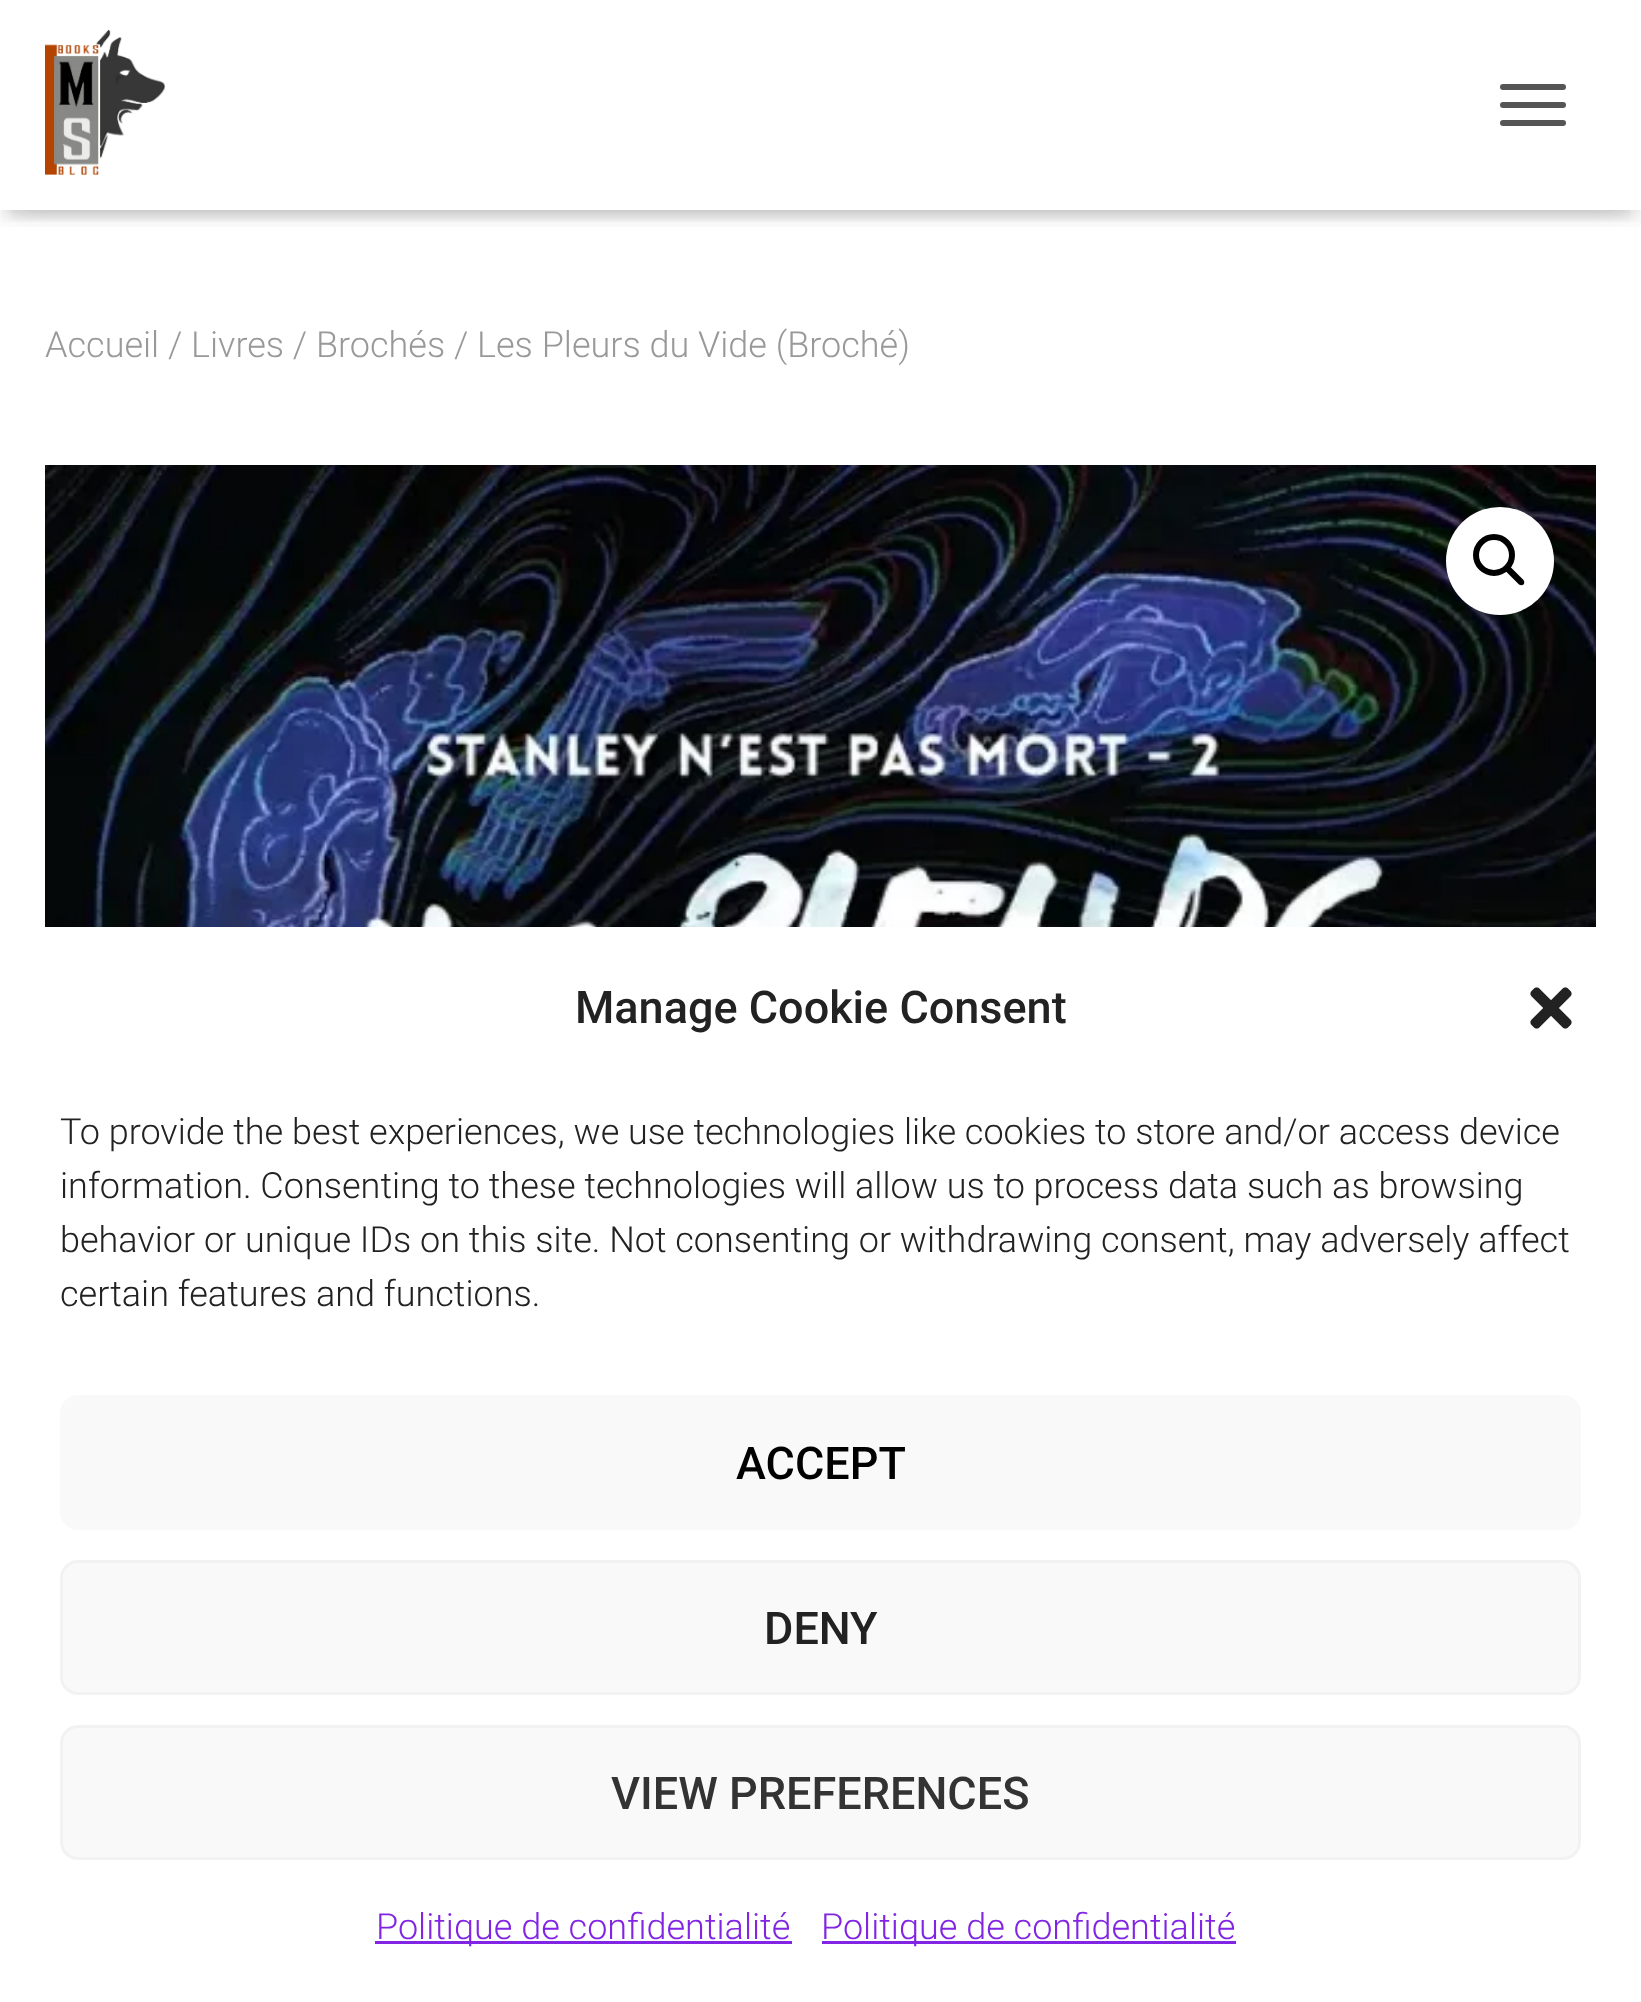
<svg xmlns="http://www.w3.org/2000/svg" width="1641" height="2002">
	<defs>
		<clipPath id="clip1"><rect x="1" y="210" width="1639" height="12" /></clipPath>
		<clipPath id="clip2"><rect x="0" y="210" width="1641" height="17" /></clipPath>
		<clipPath id="clip3"><rect x="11" y="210" width="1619" height="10" /></clipPath>
	</defs>
	<rect width="100%" height="100%" fill="#FFFFFF" />
	<g clip-path="url(#clip1)">
		<rect x="6" y="18" width="1629" height="198" fill="#000000" fill-opacity="0.1" filter="blur(7.5px)" />
	</g>
	<g clip-path="url(#clip2)">
		<rect x="0" y="3" width="1641" height="210" fill="#000000" fill-opacity="0.12" filter="blur(15px)" />
	</g>
	<g clip-path="url(#clip3)">
		<rect x="18" y="21" width="1605" height="174" fill="#000000" fill-opacity="0.42" filter="blur(15px)" />
	</g>
	<image x="45" y="30" width="120" height="145" href="assets/img1.png" />
	<rect x="1500" y="84" width="66" height="6" rx="3" fill="#555555" />
	<rect x="1500" y="102" width="66" height="6" rx="3" fill="#555555" />
	<rect x="1500" y="120" width="66" height="6" rx="3" fill="#555555" />
	<text x="45" y="357" font-family="Roboto" font-size="36" font-weight="300" fill="#999999">Accueil / Livres / Brochés / Les Pleurs du Vide (Broché)</text>
	<image x="45" y="465" width="1551" height="462" href="assets/img2.png" />
	<circle cx="1500" cy="561" r="54" fill="#FFFFFF" />
	<circle cx="1494" cy="555" r="18" fill="none" stroke="#000000" stroke-width="6" />
	<path d="M1506.5 567.5C1507.5 566.5 1509.5 566.5 1511 567.5L1523.5 580C1524.5 581.5 1524.5 583.5 1523.5 584.5C1522.5 585.5 1520.5 585.5 1519 584.5L1506.5 572C1505.5 570.5 1505.5 568.5 1506.5 567.5Z" fill="#000000" />
	<text x="575" y="1023" font-family="Roboto" font-size="45" font-weight="500" fill="#222222">Manage Cookie Consent</text>
	<image x="1530" y="987" width="42" height="42" href="assets/img3.png" />
	<g font-family="Roboto" font-size="36" font-weight="300" fill="#222222">
		<text x="60" y="1144">To provide the best experiences, we use technologies like cookies to store and/or access device</text>
		<text x="60" y="1198">information. Consenting to these technologies will allow us to process data such as browsing</text>
		<text x="60" y="1252">behavior or unique IDs on this site. Not consenting or withdrawing consent, may adversely affect</text>
		<text x="60" y="1306">certain features and functions.</text>
	</g>
	<rect x="60" y="1395" width="1521" height="135" rx="18" fill="#F9F9F9" />
	<text x="736" y="1479" font-family="Roboto" font-size="45" font-weight="500" fill="#000000">ACCEPT</text>
	<rect x="61.5" y="1561.5" width="1518" height="132" rx="16.5" fill="#F9F9F9" stroke="#F2F2F2" stroke-width="3" />
	<text x="764" y="1644" font-family="Roboto" font-size="45" font-weight="500" fill="#222222">DENY</text>
	<rect x="61.5" y="1726.5" width="1518" height="132" rx="16.5" fill="#F9F9F9" stroke="#F2F2F2" stroke-width="3" />
	<text x="611" y="1809" font-family="Roboto" font-size="45" font-weight="500" fill="#333333">VIEW PREFERENCES</text>
	<rect x="375" y="1941" width="417" height="3" fill="#8224E3" />
	<text x="376" y="1939" font-family="Roboto" font-size="36" font-weight="300" fill="#8224E3">Politique de confidentialité</text>
	<rect x="822" y="1941" width="414" height="3" fill="#8224E3" />
	<text x="821" y="1939" font-family="Roboto" font-size="36" font-weight="300" fill="#8224E3">Politique de confidentialité</text>
</svg>
